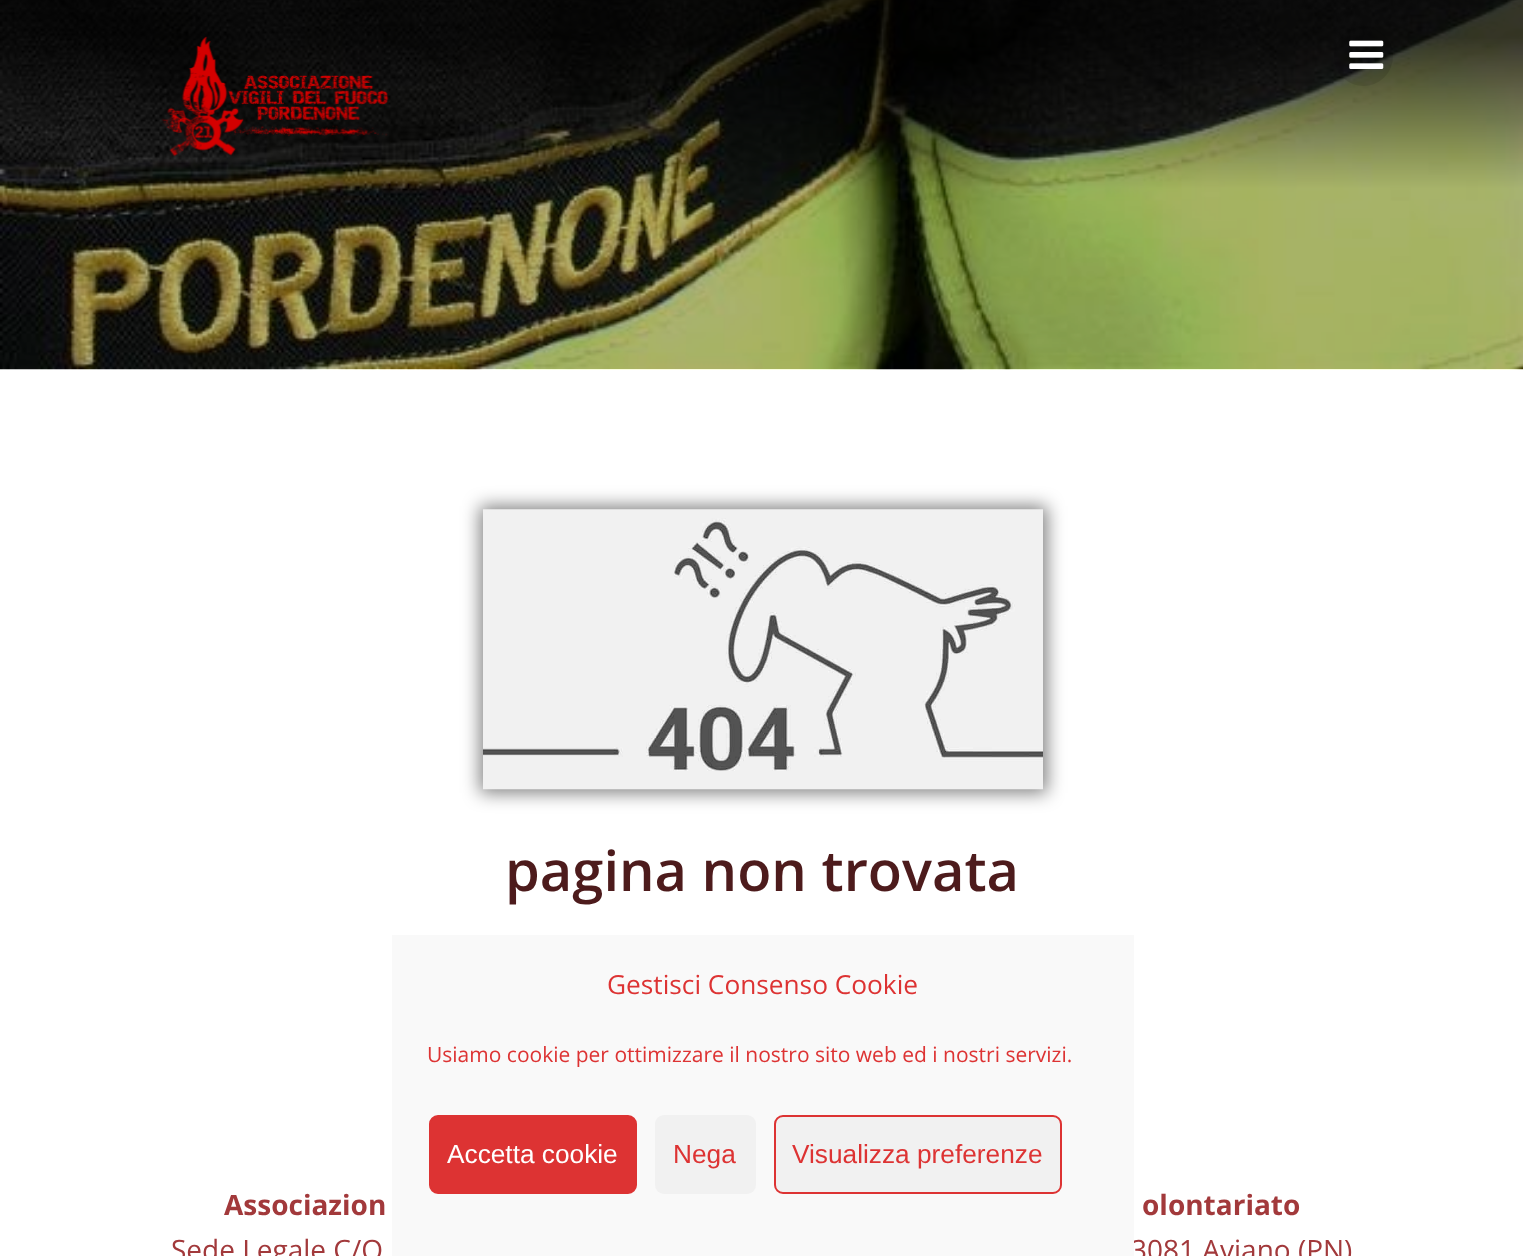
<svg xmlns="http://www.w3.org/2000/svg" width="1523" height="1256">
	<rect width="100%" height="100%" fill="#FFFFFF" />
	<image x="0" y="0" width="1523" height="370" href="assets/img1.png" />
	<image x="161" y="36" width="228" height="121" href="assets/img2.png" />
	<rect x="1334" y="26" width="59" height="60" rx="29.5" fill="#000000" fill-opacity="0.1" />
	<image x="1349" y="40" width="35" height="29" href="assets/img3.png" />
	<rect x="480" y="506" width="567" height="287" fill="#000000" fill-opacity="0.5" filter="blur(9px)" />
	<image x="483" y="509" width="560" height="281" href="assets/img4.png" />
	<text x="505" y="891" font-family="Open Sans" font-size="56" font-weight="600" fill="#4D1B1C">pagina non trovata</text>
	<g font-family="Open Sans" font-size="28" font-weight="700" fill="#A2393B">
		<text x="224" y="1215">Associazion</text>
		<text x="1142" y="1215">olontariato</text>
	</g>
	<g font-family="Open Sans" font-size="28" fill="#A2393B">
		<text x="171" y="1260">Sede Legale C/O</text>
		<text x="1131" y="1260">3081 Aviano (PN)</text>
	</g>
	<rect x="392" y="935" width="742" height="321" fill="#F9F9F9" />
	<text x="607" y="994" font-family="Open Sans" font-size="26.25" fill="#DD3333">Gestisci Consenso Cookie</text>
	<text x="427" y="1062" font-family="Open Sans" font-size="21" fill="#DD3333">Usiamo cookie per ottimizzare il nostro sito web ed i nostri servizi.</text>
	<rect x="430" y="1116" width="206" height="77" rx="8" fill="#DD3333" stroke="#DD3333" stroke-width="2" />
	<text x="447" y="1163" font-family="Liberation Sans" font-size="26.25" fill="#FFFFFF">Accetta cookie</text>
	<rect x="655" y="1115" width="101" height="79" rx="9" fill="#F1F1F1" />
	<text x="673" y="1163" font-family="Liberation Sans" font-size="26.25" fill="#DD3333">Nega</text>
	<rect x="775" y="1116" width="286" height="77" rx="8" fill="#F1F1F1" stroke="#DD3333" stroke-width="2" />
	<text x="792" y="1163" font-family="Liberation Sans" font-size="26.25" fill="#DD3333">Visualizza preferenze</text>
</svg>
